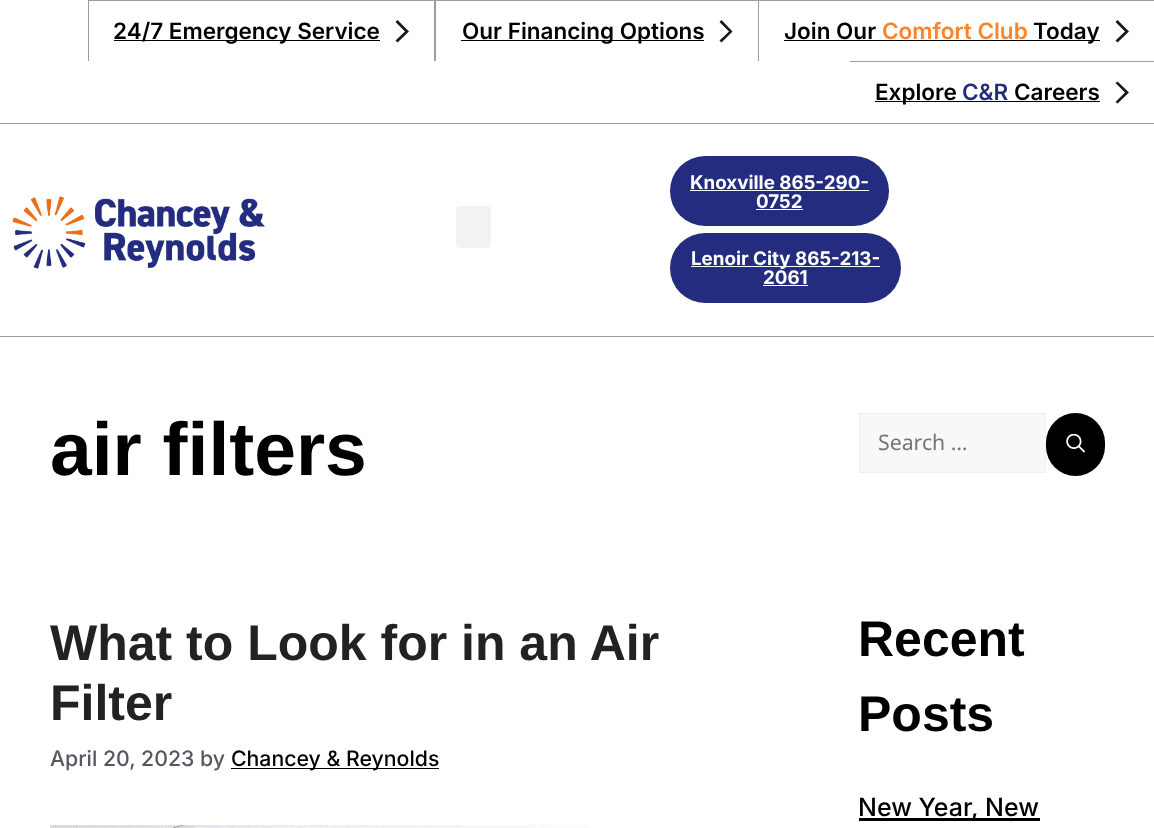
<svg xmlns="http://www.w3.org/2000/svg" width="1154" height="828">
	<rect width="100%" height="100%" fill="#FFFFFF" />
	<rect x="0" y="123" width="1154" height="1" fill="#9D9D9D" />
	<rect x="88" y="0" width="1066" height="1" fill="#9D9D9D" />
	<rect x="434" y="0" width="2" height="61" fill="#9D9D9D" />
	<rect x="88" y="0" width="1" height="61" fill="#9D9D9D" />
	<rect x="114" y="40" width="266" height="1" fill="#000000" />
	<text x="113" y="39" font-family="Inter" font-size="22.5" font-weight="600" fill="#000000">24/7 Emergency Service</text>
	<path d="M397.5 20L409 31.5L397.5 42.5L395.5 40.5L405 31.5L395.5 22Z" fill="#191919" />
	<rect x="758" y="0" width="1" height="61" fill="#9D9D9D" />
	<rect x="461" y="40" width="243" height="1" fill="#000000" />
	<text x="462" y="39" font-family="Inter" font-size="22.5" font-weight="600" fill="#000000">Our Financing Options</text>
	<path d="M721.5 20L732.5 31.5L721.5 42.5L719.5 40.5L729 31.5L719.5 22Z" fill="#191919" />
	<text x="784" y="39" font-family="Inter" font-size="22.5" font-weight="600" fill="#000000">Join Our</text>
	<rect x="784" y="40" width="316" height="1" fill="#000000" />
	<text x="882" y="39" font-family="Inter" font-size="22.5" font-weight="600" fill="#FF832B">Comfort Club</text>
	<text x="1033" y="39" font-family="Inter" font-size="22.5" font-weight="600" fill="#000000">Today</text>
	<path d="M1117.5 20L1129 31.5L1117.5 42.5L1115.5 40.5L1125 31.5L1115.5 22Z" fill="#191919" />
	<rect x="850" y="61" width="304" height="1" fill="#9D9D9D" />
	<rect x="875" y="101" width="225" height="1" fill="#000000" />
	<text x="875" y="100" font-family="Inter" font-size="22.5" font-weight="600" fill="#000000">Explore</text>
	<text x="962" y="100" font-family="Inter" font-size="22.5" font-weight="600" fill="#232C7E">C&amp;R</text>
	<text x="1014" y="100" font-family="Inter" font-size="22.5" font-weight="600" fill="#000000">Careers</text>
	<path d="M1117.5 81.5L1129 92.5L1117.5 103.5L1115.5 102L1125 92.5L1115.5 83Z" fill="#191919" />
	<rect x="0" y="336" width="1154" height="1" fill="#9D9D9D" />
	<image x="12" y="196" width="253" height="73" href="assets/img1.png" />
	<rect x="456" y="206" width="35" height="42" rx="4" fill="#F2F2F2" />
	<rect x="670" y="156" width="219" height="70" rx="35" fill="#232C7E" />
	<text x="690" y="189" font-family="Inter" font-size="18.75" font-weight="700" fill="#FFFFFF">Knoxville 865-290-</text>
	<rect x="690" y="190" width="179" height="1" fill="#FFFFFF" />
	<text x="756" y="208" font-family="Inter" font-size="18.75" font-weight="700" fill="#FFFFFF">0752</text>
	<rect x="756" y="209" width="47" height="1" fill="#FFFFFF" />
	<rect x="670" y="233" width="231" height="70" rx="35" fill="#232C7E" />
	<rect x="691" y="266" width="189" height="1" fill="#FFFFFF" />
	<g font-family="Inter" font-size="18.75" font-weight="700" fill="#FFFFFF">
		<text x="691" y="265">Lenoir City 865-213-</text>
		<text x="763" y="284">2061</text>
	</g>
	<rect x="763" y="285" width="45" height="1" fill="#FFFFFF" />
	<text x="50" y="475" font-family="Liberation Sans" font-size="75" font-weight="700" fill="#000000">air filters</text>
	<g font-family="Liberation Sans" font-size="50" font-weight="700" fill="#222222">
		<text x="50" y="660">What to Look for in an Air</text>
		<text x="50" y="720">Filter</text>
	</g>
	<text x="50" y="766" font-family="Inter" font-size="21.25" font-weight="500" fill="#575760">April 20, 2023 by</text>
	<rect x="231" y="768" width="208" height="1" fill="#000000" />
	<text x="231" y="766" font-family="Inter" font-size="21.25" font-weight="500" fill="#000000">Chancey &amp; Reynolds</text>
	<image x="50" y="825" width="538" height="3" href="assets/img2.png" />
	<rect x="859.5" y="413.5" width="186" height="59" fill="#F7F8F9" stroke="#F0F0F0" />
	<text x="878" y="450" font-family="Noto Sans" font-size="21.25" fill="#757575">Search …</text>
	<rect x="1046" y="413" width="59" height="63" rx="29.5" fill="#000000" />
	<image x="1066" y="434" width="19" height="19" href="assets/img3.png" />
	<g font-family="Liberation Sans" font-size="50" font-weight="700" fill="#000000">
		<text x="858" y="656">Recent</text>
		<text x="858" y="731">Posts</text>
	</g>
	<rect x="859" y="818" width="181" height="3" fill="#000000" />
	<text x="858" y="816" font-family="Inter" font-size="25" font-weight="500" fill="#000000">New Year, New</text>
</svg>
